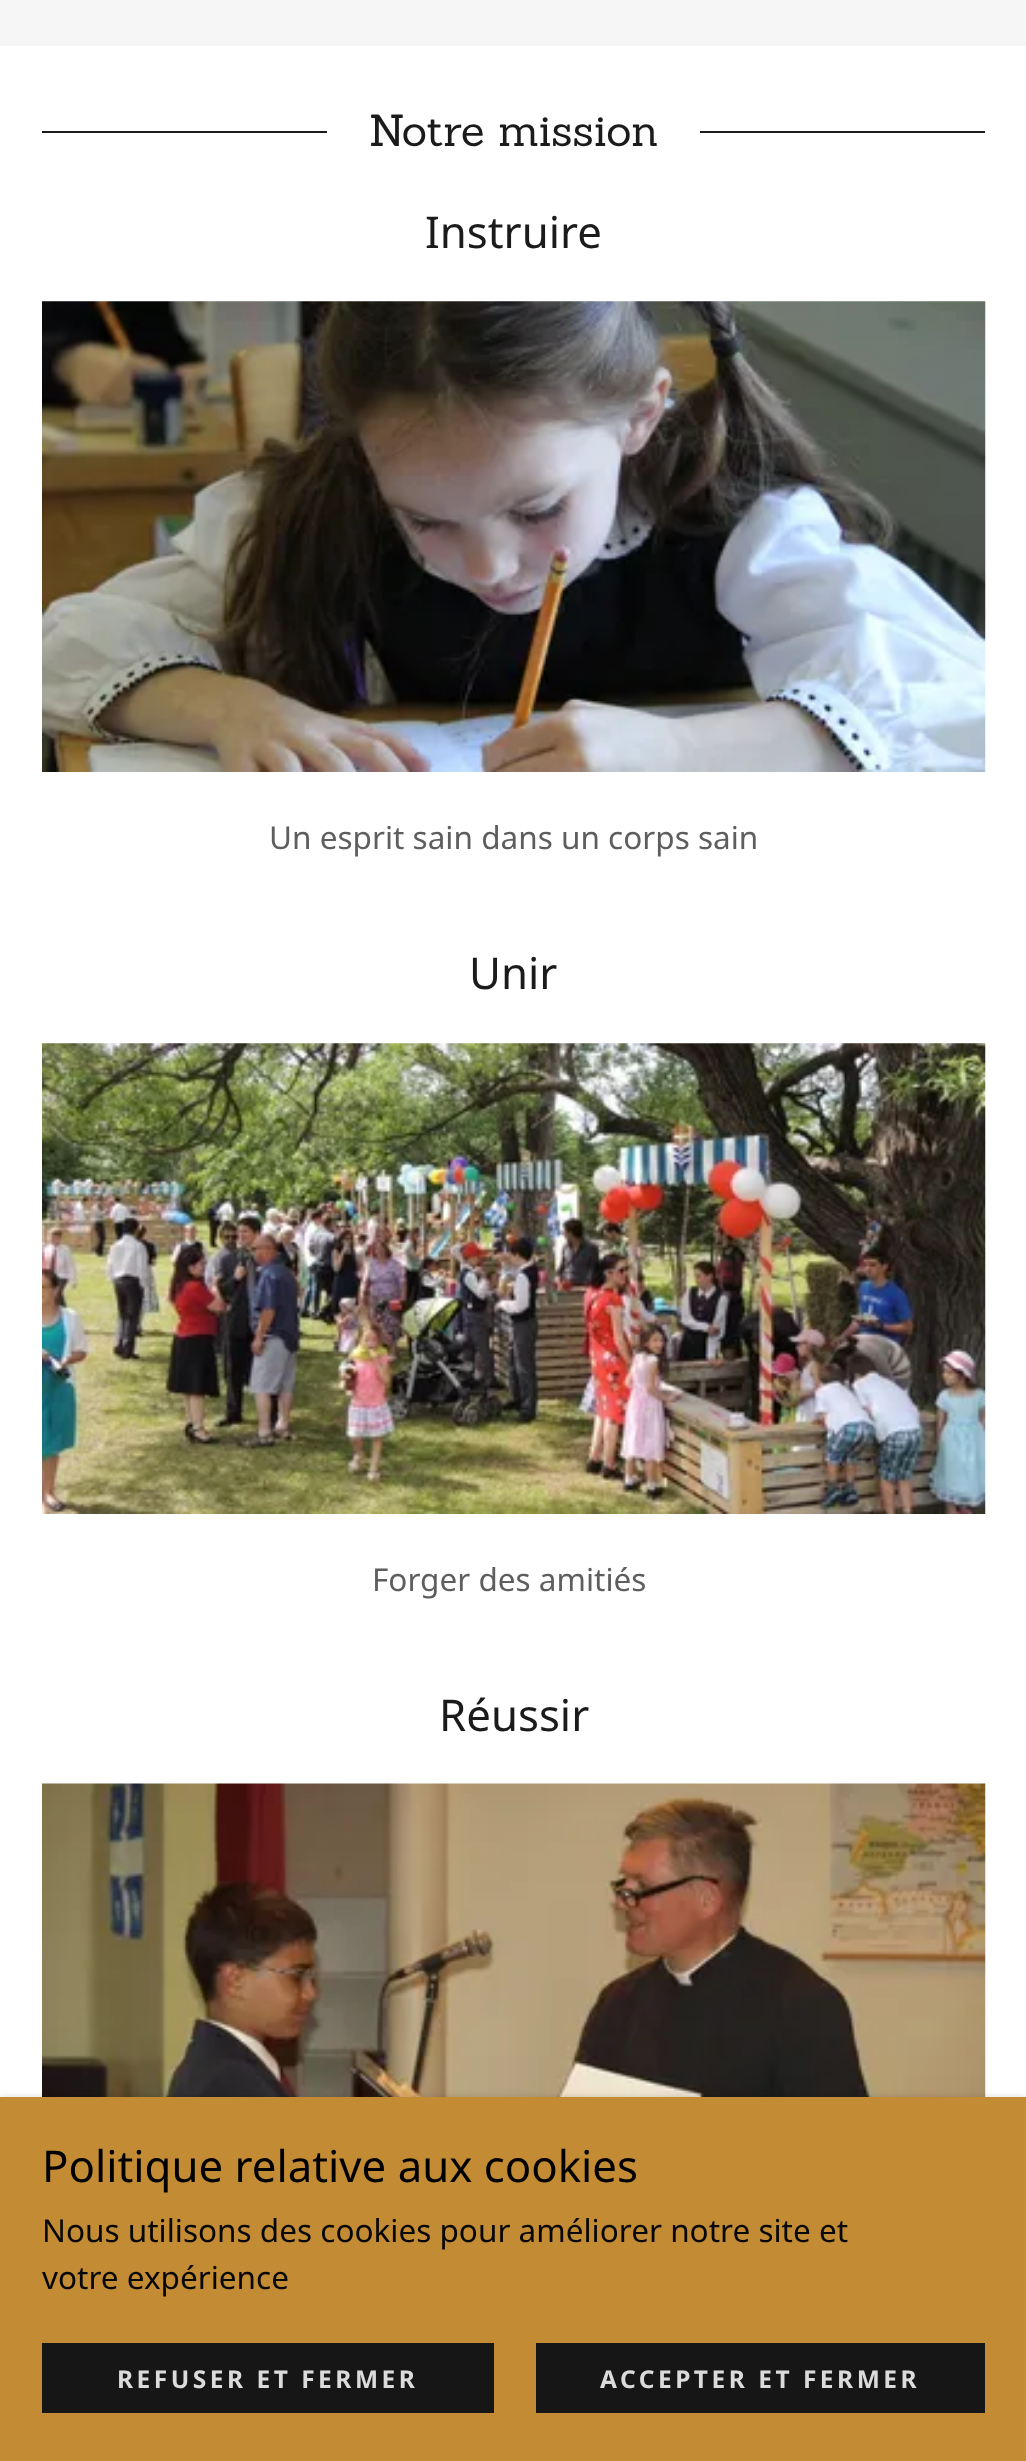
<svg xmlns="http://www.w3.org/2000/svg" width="1026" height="2461">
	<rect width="100%" height="100%" fill="#F6F6F6" />
	<rect x="0" y="46" width="1026" height="2051" fill="#FFFFFF" />
	<rect x="42" y="131" width="285" height="2" fill="#1B1B1B" />
	<text x="369" y="146" font-family="Sanchez" font-size="43.75" fill="#1B1B1B">Notre mission</text>
	<rect x="700" y="131" width="285" height="2" fill="#1B1B1B" />
	<text x="425" y="248" font-family="Noto Sans" font-size="43.75" fill="#1B1B1B">Instruire</text>
	<image x="42" y="301" width="944" height="471" href="assets/img1.png" />
	<text x="269" y="849" font-family="Noto Sans" font-size="31.5" fill="#5E5E5E">Un esprit sain dans un corps sain</text>
	<text x="469" y="989" font-family="Noto Sans" font-size="43.75" fill="#1B1B1B">Unir</text>
	<image x="42" y="1043" width="944" height="471" href="assets/img2.png" />
	<text x="372" y="1591" font-family="Noto Sans" font-size="31.5" fill="#5E5E5E">Forger des amitiés</text>
	<text x="439" y="1731" font-family="Noto Sans" font-size="43.75" fill="#1B1B1B">Réussir</text>
	<image x="42" y="1783" width="944" height="314" href="assets/img3.png" />
	<rect x="0" y="2100" width="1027" height="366" fill="#000000" fill-opacity="0.3" filter="blur(5px)" />
	<rect x="0" y="2097" width="1026" height="364" fill="#C38B33" />
	<text x="42" y="2182" font-family="Noto Sans" font-size="43.75" fill="#000000">Politique relative aux cookies</text>
	<g font-family="Noto Sans" font-size="31.5" fill="#070707">
		<text x="42" y="2242">Nous utilisons des cookies pour améliorer notre site et</text>
		<text x="42" y="2289">votre expérience</text>
	</g>
	<rect x="42" y="2343" width="452" height="70" fill="#161616" />
	<text x="117" y="2388" font-family="Noto Sans" font-size="24.5" font-weight="700" letter-spacing="3.5" fill="#DBDBDB">REFUSER ET FERMER</text>
	<rect x="536" y="2343" width="449" height="70" fill="#161616" />
	<text x="600" y="2388" font-family="Noto Sans" font-size="24.5" font-weight="700" letter-spacing="3.5" fill="#DBDBDB">ACCEPTER ET FERMER</text>
</svg>
